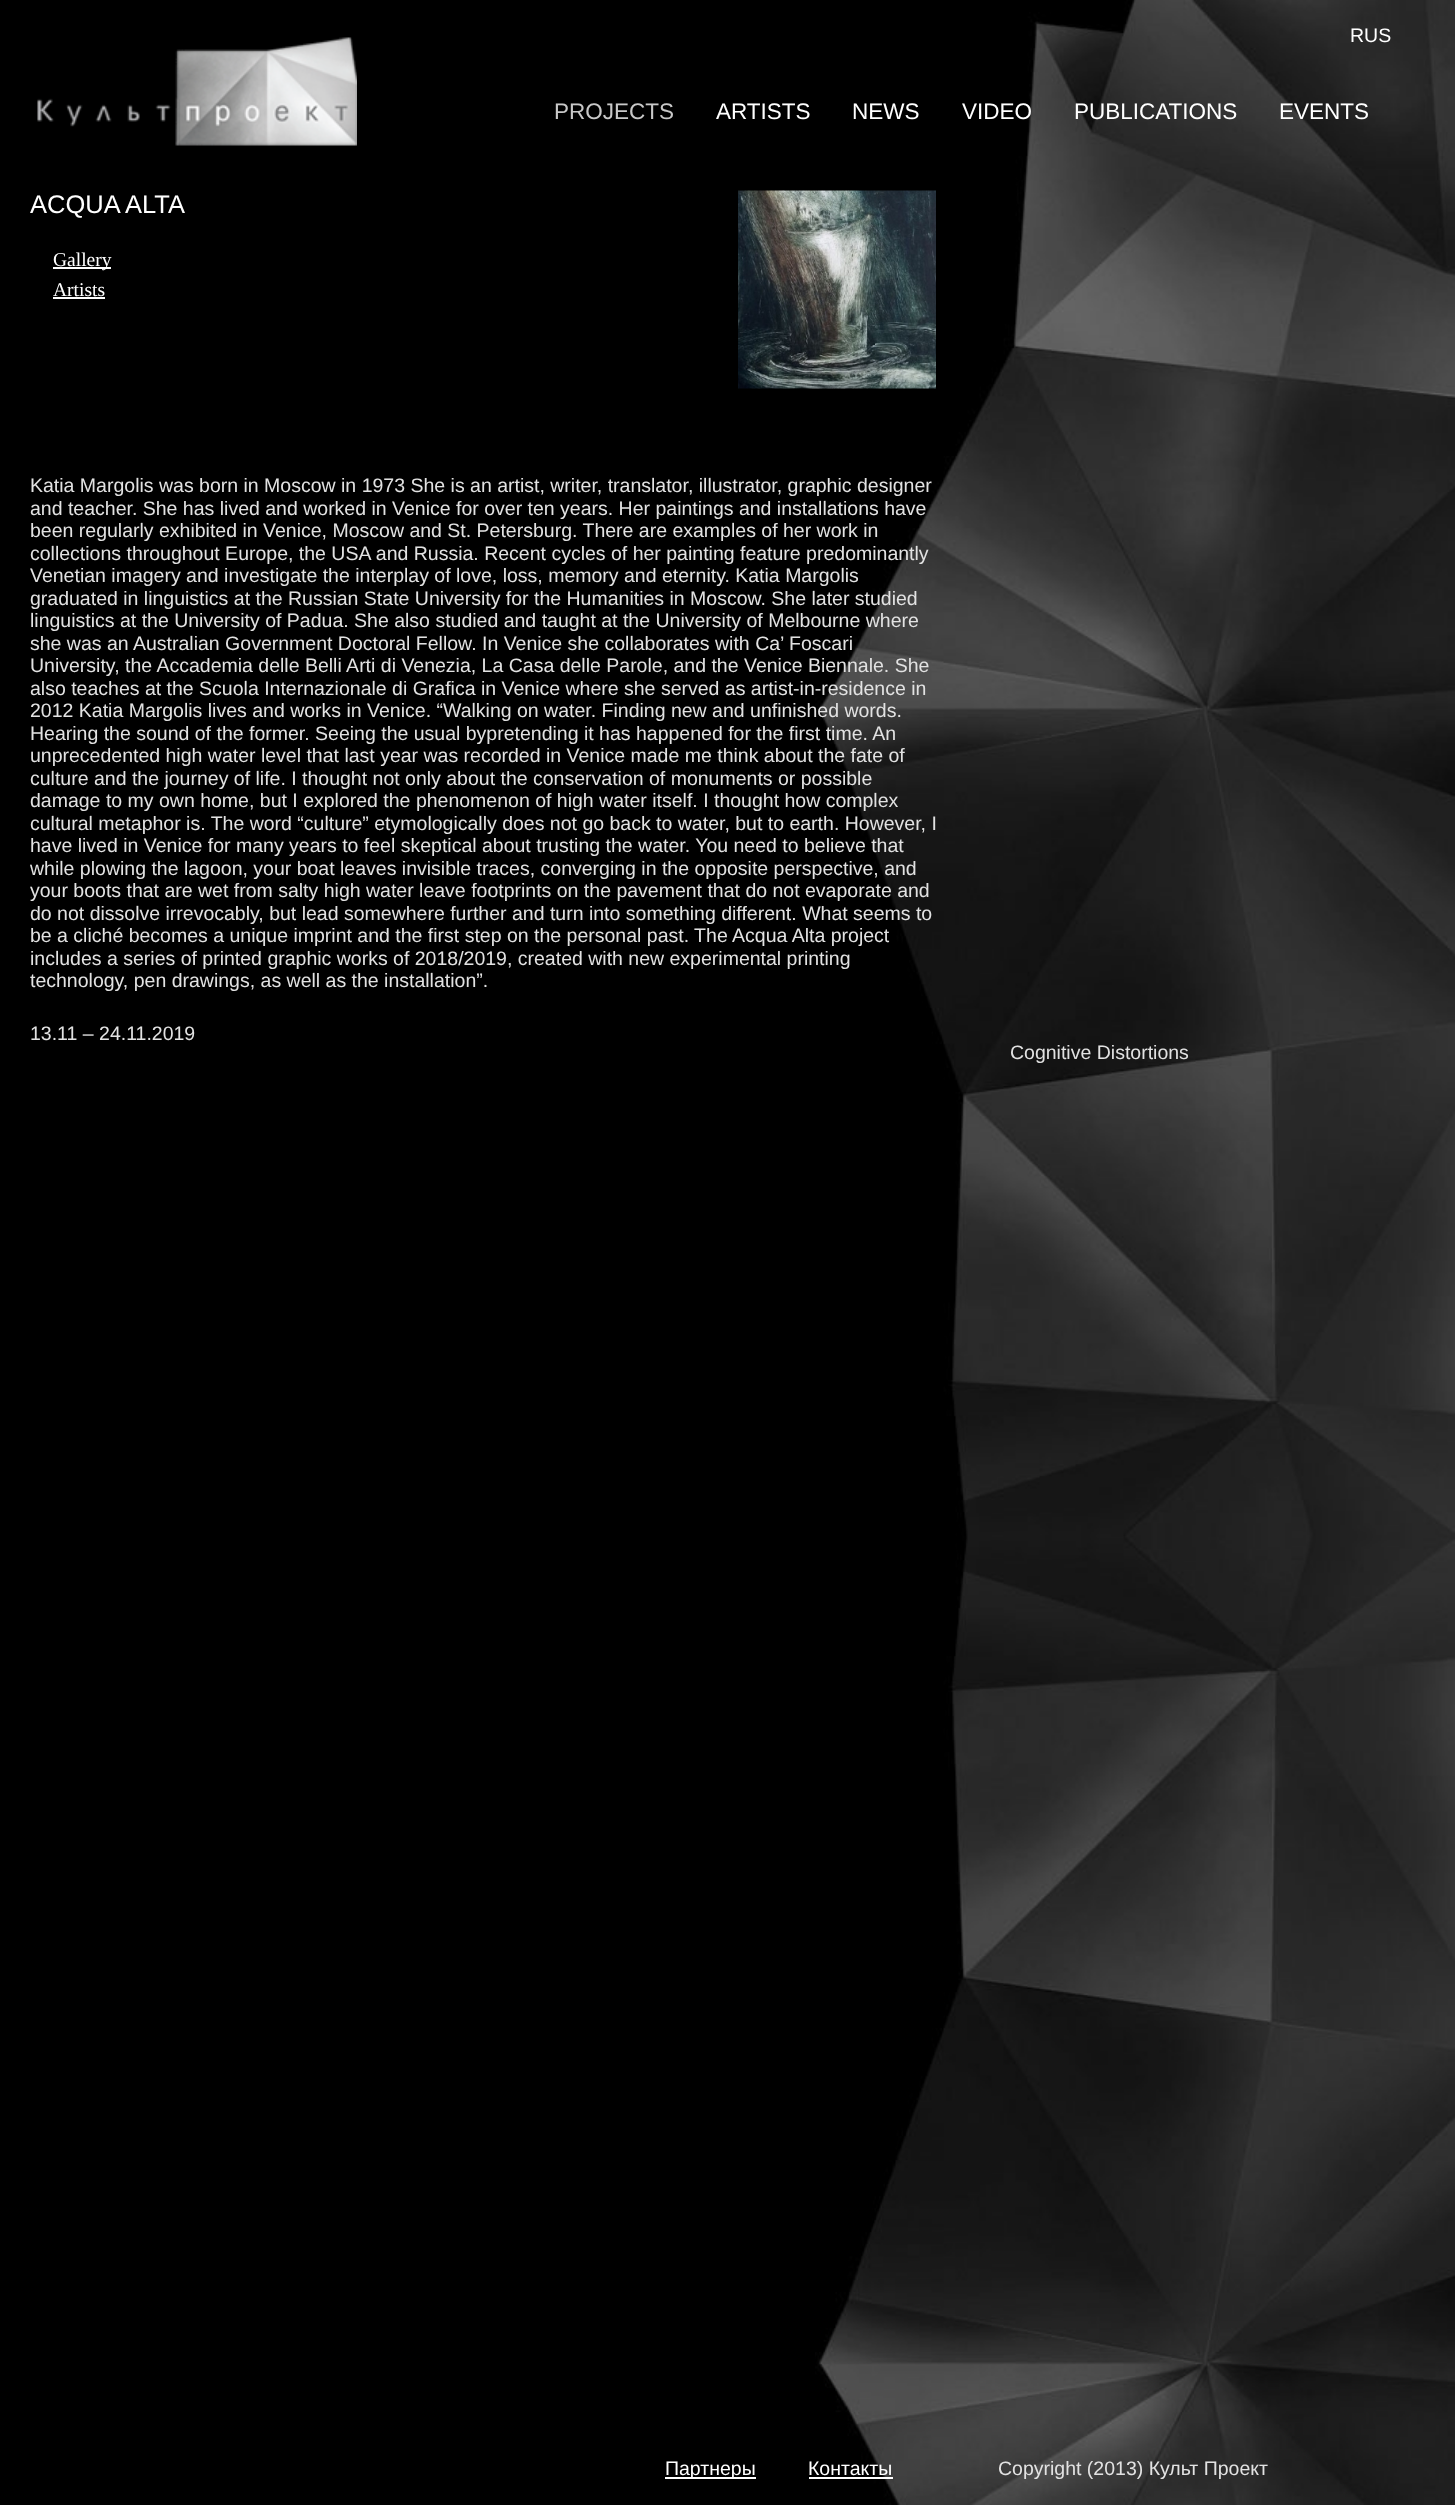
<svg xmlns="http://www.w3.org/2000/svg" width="1455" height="2505">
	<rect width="100%" height="100%" fill="#000000" />
	<image x="815" y="0" width="640" height="2505" href="assets/img1.png" />
	<text x="1350" y="42" font-family="Liberation Sans" font-size="19.5" fill="#FFFFFF">RUS</text>
	<image x="37" y="37" width="320" height="109" href="assets/img2.png" />
	<text x="554" y="119" font-family="Liberation Sans" font-size="22.5" fill="#C8C8C8">PROJECTS</text>
	<g font-family="Liberation Sans" font-size="22.5" fill="#FFFFFF">
		<text x="716" y="119">ARTISTS</text>
		<text x="852" y="119">NEWS</text>
		<text x="962" y="119">VIDEO</text>
		<text x="1074" y="119">PUBLICATIONS</text>
		<text x="1279" y="119">EVENTS</text>
	</g>
	<text x="30" y="213" font-family="Liberation Sans" font-size="25.5" fill="#FFFFFF">ACQUA ALTA</text>
	<rect x="53" y="267" width="58" height="2" fill="#FFFFFF" />
	<g font-family="Liberation Serif" font-size="19.5" fill="#FFFFFF">
		<text x="53" y="266">Gallery</text>
		<text x="53" y="296">Artists</text>
	</g>
	<rect x="53" y="297" width="52" height="2" fill="#FFFFFF" />
	<image x="738" y="190" width="198" height="199" href="assets/img3.png" />
	<g font-family="Liberation Sans" font-size="19.5" fill="#E2E2E2">
		<text x="30" y="492">Katia Margolis was born in Moscow in 1973 She is an artist, writer, translator, illustrator, graphic designer</text>
		<text x="30" y="515">and teacher. She has lived and worked in Venice for over ten years. Her paintings and installations have</text>
		<text x="30" y="537">been regularly exhibited in Venice, Moscow and St. Petersburg. There are examples of her work in</text>
		<text x="30" y="560">collections throughout Europe, the USA and Russia. Recent cycles of her painting feature predominantly</text>
		<text x="30" y="582">Venetian imagery and investigate the interplay of love, loss, memory and eternity. Katia Margolis</text>
		<text x="30" y="605">graduated in linguistics at the Russian State University for the Humanities in Moscow. She later studied</text>
		<text x="30" y="627">linguistics at the University of Padua. She also studied and taught at the University of Melbourne where</text>
		<text x="30" y="650">she was an Australian Government Doctoral Fellow. In Venice she collaborates with Ca’ Foscari</text>
		<text x="30" y="672">University, the Accademia delle Belli Arti di Venezia, La Casa delle Parole, and the Venice Biennale. She</text>
		<text x="30" y="695">also teaches at the Scuola Internazionale di Grafica in Venice where she served as artist-in-residence in</text>
		<text x="30" y="717">2012 Katia Margolis lives and works in Venice. “Walking on water. Finding new and unfinished words.</text>
		<text x="30" y="740">Hearing the sound of the former. Seeing the usual bypretending it has happened for the first time. An</text>
		<text x="30" y="762">unprecedented high water level that last year was recorded in Venice made me think about the fate of</text>
		<text x="30" y="785">culture and the journey of life. I thought not only about the conservation of monuments or possible</text>
		<text x="30" y="807">damage to my own home, but I explored the phenomenon of high water itself. I thought how complex</text>
		<text x="30" y="830">cultural metaphor is. The word “culture” etymologically does not go back to water, but to earth. However, I</text>
		<text x="30" y="852">have lived in Venice for many years to feel skeptical about trusting the water. You need to believe that</text>
		<text x="30" y="875">while plowing the lagoon, your boat leaves invisible traces, converging in the opposite perspective, and</text>
		<text x="30" y="897">your boots that are wet from salty high water leave footprints on the pavement that do not evaporate and</text>
		<text x="30" y="920">do not dissolve irrevocably, but lead somewhere further and turn into something different. What seems to</text>
		<text x="30" y="942">be a cliché becomes a unique imprint and the first step on the personal past. The Acqua Alta project</text>
		<text x="30" y="965">includes a series of printed graphic works of 2018/2019, created with new experimental printing</text>
		<text x="30" y="987">technology, pen drawings, as well as the installation”.</text>
		<text x="30" y="1040">13.11 – 24.11.2019</text>
		<text x="1010" y="1059">Cognitive Distortions</text>
	</g>
	<rect x="665" y="2477" width="91" height="2" fill="#FFFFFF" />
	<g font-family="Liberation Sans" font-size="19.5" fill="#FFFFFF">
		<text x="665" y="2475">Партнеры</text>
		<text x="808" y="2475">Контакты</text>
	</g>
	<rect x="809" y="2477" width="84" height="2" fill="#FFFFFF" />
	<text x="998" y="2475" font-family="Liberation Sans" font-size="19.5" fill="#E2E2E2">Copyright (2013) Культ Проект</text>
</svg>
